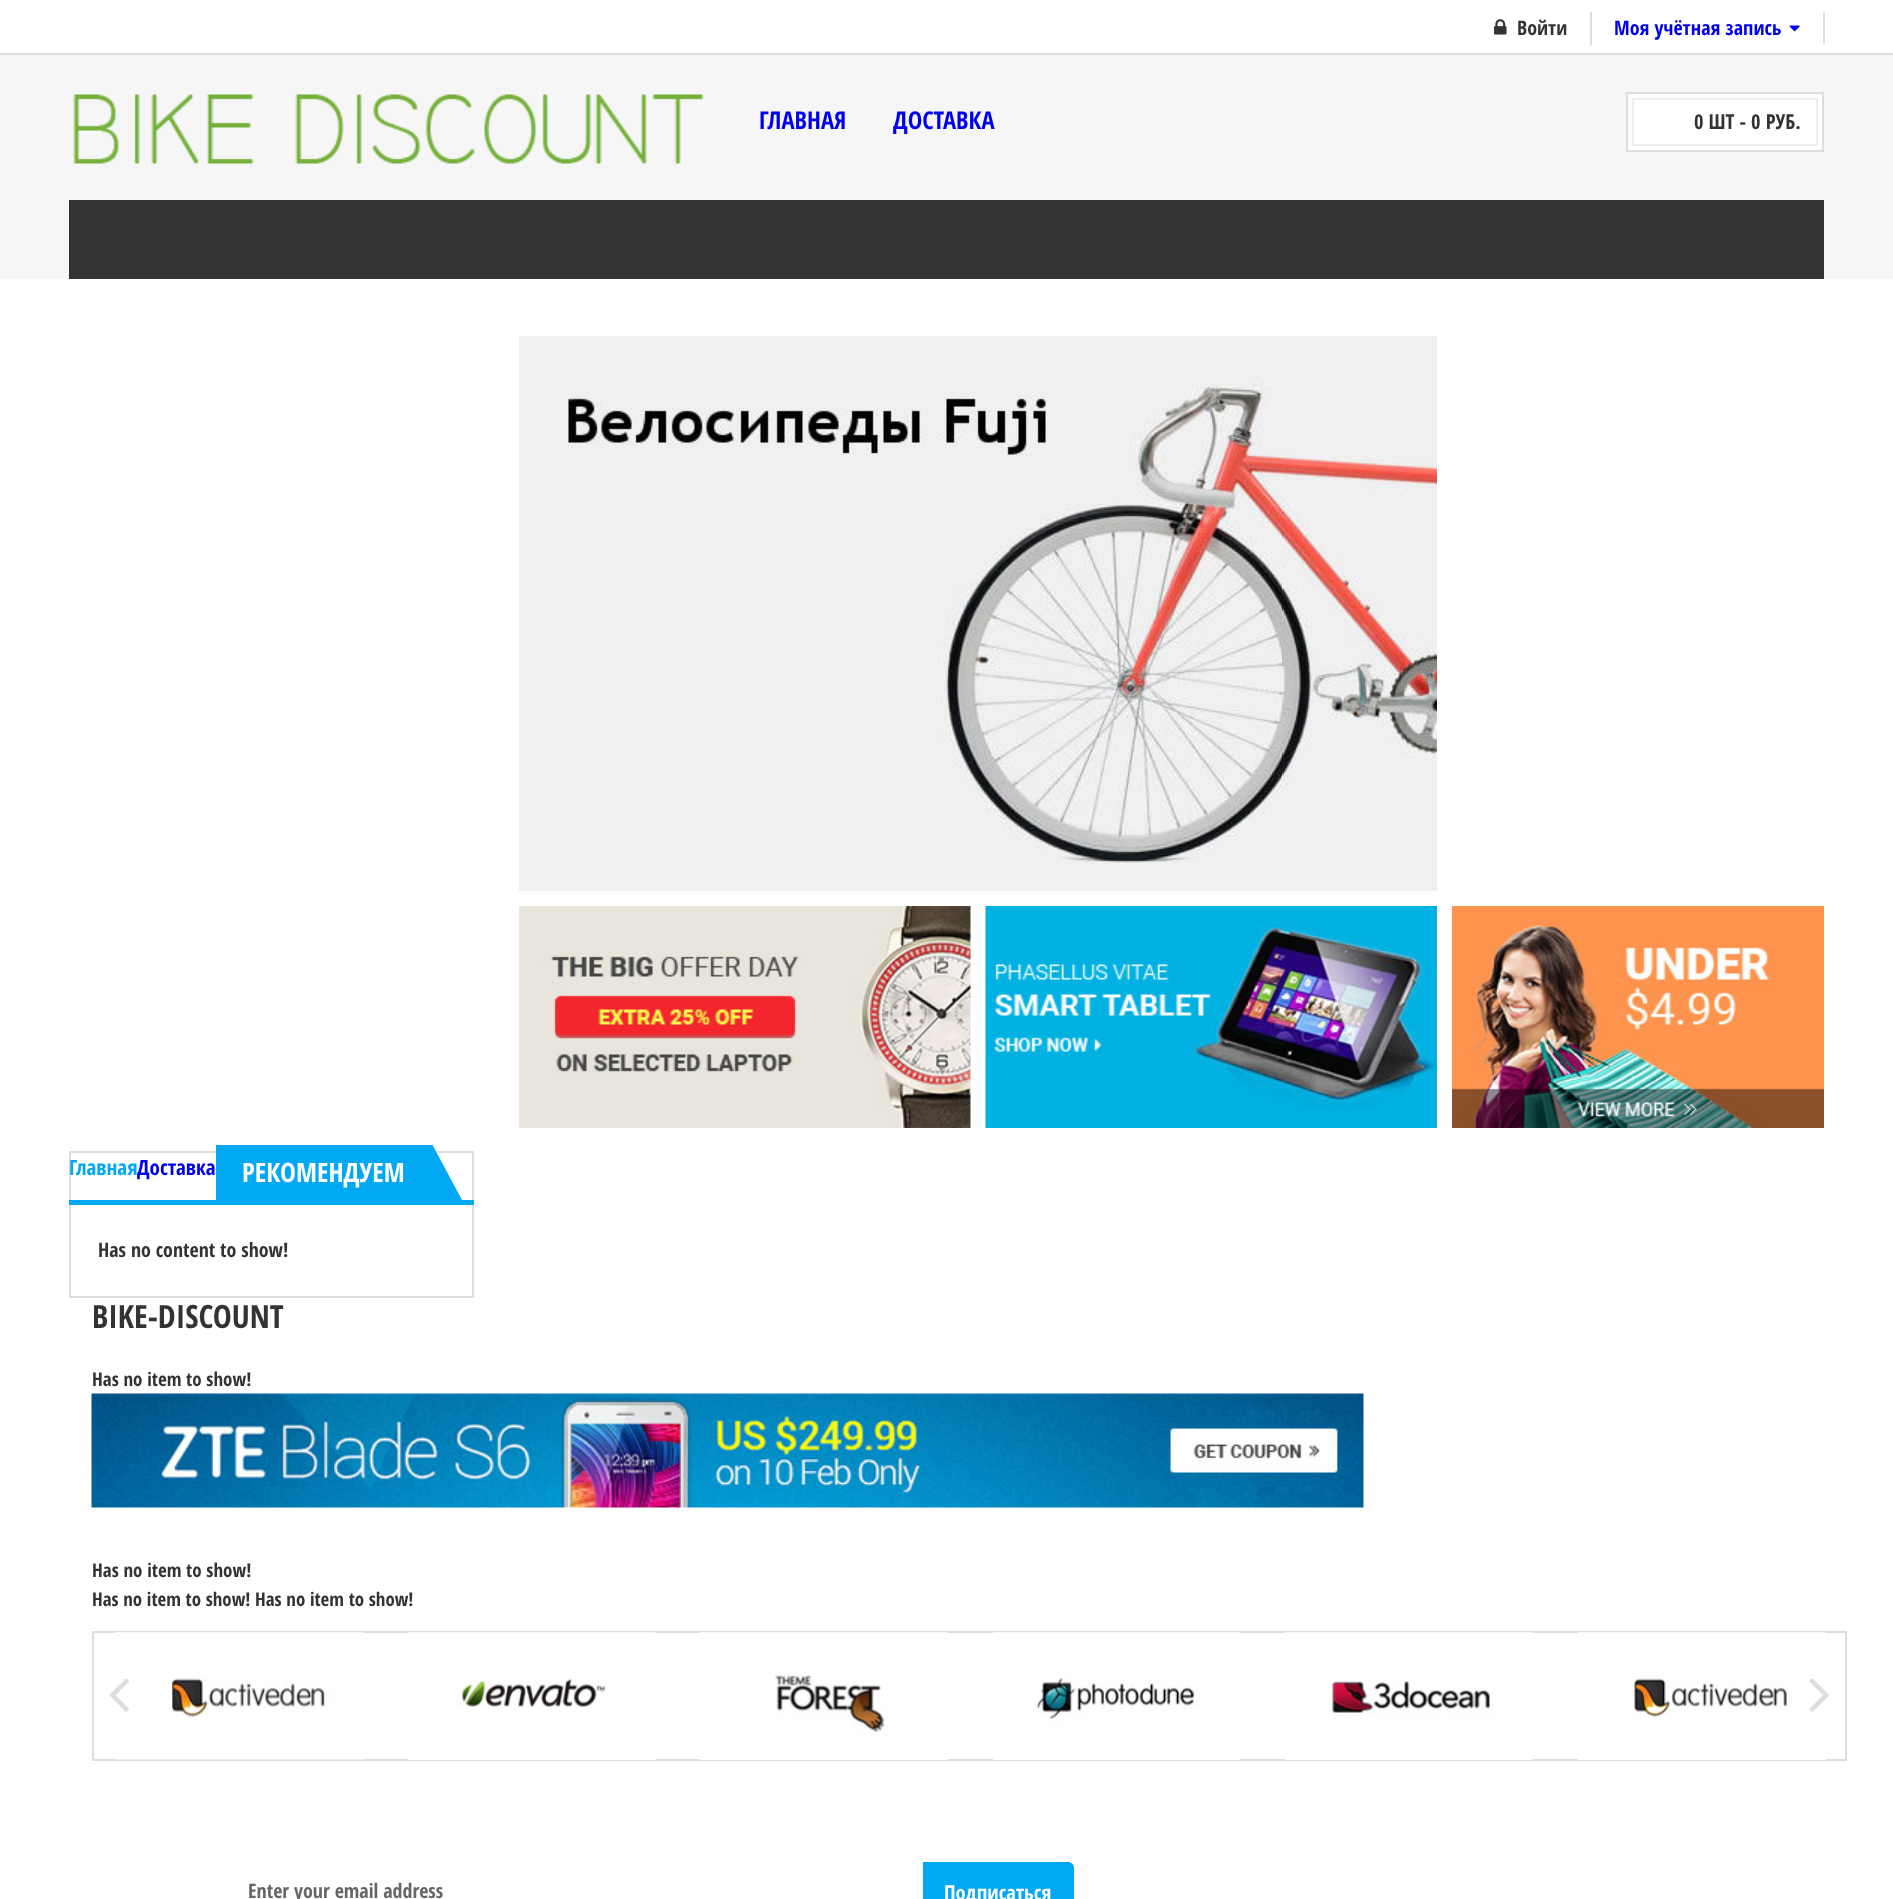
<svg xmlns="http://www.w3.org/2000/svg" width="1893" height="1899">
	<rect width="100%" height="100%" fill="#FFFFFF" />
	<rect x="0" y="55" width="1893" height="224" fill="#F6F6F6" />
	<rect x="0" y="53" width="1893" height="2" fill="#DDDDDD" />
	<rect x="1590" y="12" width="2" height="33" fill="#DDDDDD" />
	<image x="1494" y="19" width="13" height="16" href="assets/img1.png" />
	<text x="1517" y="35" font-family="Open Sans Condensed" font-size="20" font-weight="700" fill="#333333">Войти</text>
	<rect x="1823" y="12" width="2" height="32" fill="#DDDDDD" />
	<text x="1614" y="35" font-family="Open Sans Condensed" font-size="20" font-weight="700" fill="#0000EE">Моя учётная запись</text>
	<image x="1789" y="25" width="11" height="7" href="assets/img2.png" />
	<image x="73" y="94" width="631" height="70" href="assets/img3.png" />
	<g font-family="Open Sans Condensed" font-size="24.5" font-weight="700" fill="#0000EE">
		<text x="759" y="129">ГЛАВНАЯ</text>
		<text x="893" y="129">ДОСТАВКА</text>
	</g>
	<rect x="1627" y="93" width="196" height="58" fill="#FFFFFF" stroke="#DDDDDD" stroke-width="2" />
	<rect x="1633" y="99" width="184" height="46" fill="none" stroke="#EEEEEE" stroke-width="2" />
	<text x="1694" y="129" font-family="Open Sans Condensed" font-size="20.5" font-weight="700" fill="#333333">0 ШТ - 0 РУБ.</text>
	<rect x="69" y="200" width="1755" height="79" fill="#333333" />
	<image x="519" y="336" width="918" height="555" href="assets/img4.png" />
	<image x="519" y="906" width="452" height="222" href="assets/img5.png" />
	<image x="985" y="906" width="452" height="222" href="assets/img6.png" />
	<image x="1452" y="906" width="372" height="222" href="assets/img7.png" />
	<rect x="70" y="1152" width="403" height="145" fill="none" stroke="#DDDDDD" stroke-width="2" />
	<text x="69" y="1175" font-family="Open Sans Condensed" font-size="21" font-weight="700" fill="#02A8F3">Главная</text>
	<text x="137" y="1175" font-family="Open Sans Condensed" font-size="21" font-weight="700" fill="#0000EE">Доставка</text>
	<rect x="69" y="1200" width="405" height="5" fill="#02A8F3" />
	<rect x="216" y="1145" width="216" height="55" fill="#02A8F3" />
	<text x="242" y="1182" font-family="Open Sans Condensed" font-size="26.75" font-weight="700" fill="#FFFFFF">РЕКОМЕНДУЕМ</text>
	<path d="M462 1200H432V1144Z" fill="#02A8F3" />
	<text x="98" y="1257" font-family="Open Sans Condensed" font-size="19.9" font-weight="700" fill="#333333">Has no content to show!</text>
	<text x="92" y="1328" font-family="Open Sans Condensed" font-size="32" font-weight="700" fill="#333333">BIKE-DISCOUNT</text>
	<text x="92" y="1386" font-family="Open Sans Condensed" font-size="19" font-weight="700" fill="#333333">Has no item to show!</text>
	<image x="91" y="1393" width="1273" height="115" href="assets/img8.png" />
	<text x="92" y="1577" font-family="Open Sans Condensed" font-size="19" font-weight="700" fill="#333333">Has no item to show!</text>
	<text x="92" y="1606" font-family="Open Sans Condensed" font-size="18.9" font-weight="700" fill="#333333">Has no item to show! Has no item to show!</text>
	<rect x="93" y="1632" width="1753" height="128" fill="none" stroke="#DDDDDD" stroke-width="2" />
	<image x="115" y="1632" width="248" height="128" href="assets/img9.png" />
	<image x="408" y="1632" width="248" height="128" href="assets/img10.png" />
	<image x="700" y="1632" width="248" height="128" href="assets/img11.png" />
	<image x="993" y="1632" width="248" height="128" href="assets/img12.png" />
	<image x="1285" y="1632" width="248" height="128" href="assets/img13.png" />
	<image x="1578" y="1632" width="248" height="128" href="assets/img14.png" />
	<image x="109" y="1678" width="20" height="34" href="assets/img15.png" />
	<image x="1809" y="1678" width="20" height="34" href="assets/img16.png" />
	<path d="M921 1862H1068C1071.5 1862 1074 1864.5 1074 1868V1899C1074 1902.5 1071.5 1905 1068 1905H921Z" fill="#02A8F3" />
	<path d="M224 1862H923V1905H224C220.5 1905 218 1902.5 218 1899V1868C218 1864.5 220.5 1862 224 1862Z" fill="#FFFFFF" />
	<text x="248" y="1898" font-family="Open Sans Condensed" font-size="20" font-weight="700" fill="#666666">Enter your email address</text>
	<text x="944" y="1900" font-family="Open Sans Condensed" font-size="20.5" font-weight="700" fill="#FFFFFF">Подписаться</text>
</svg>
